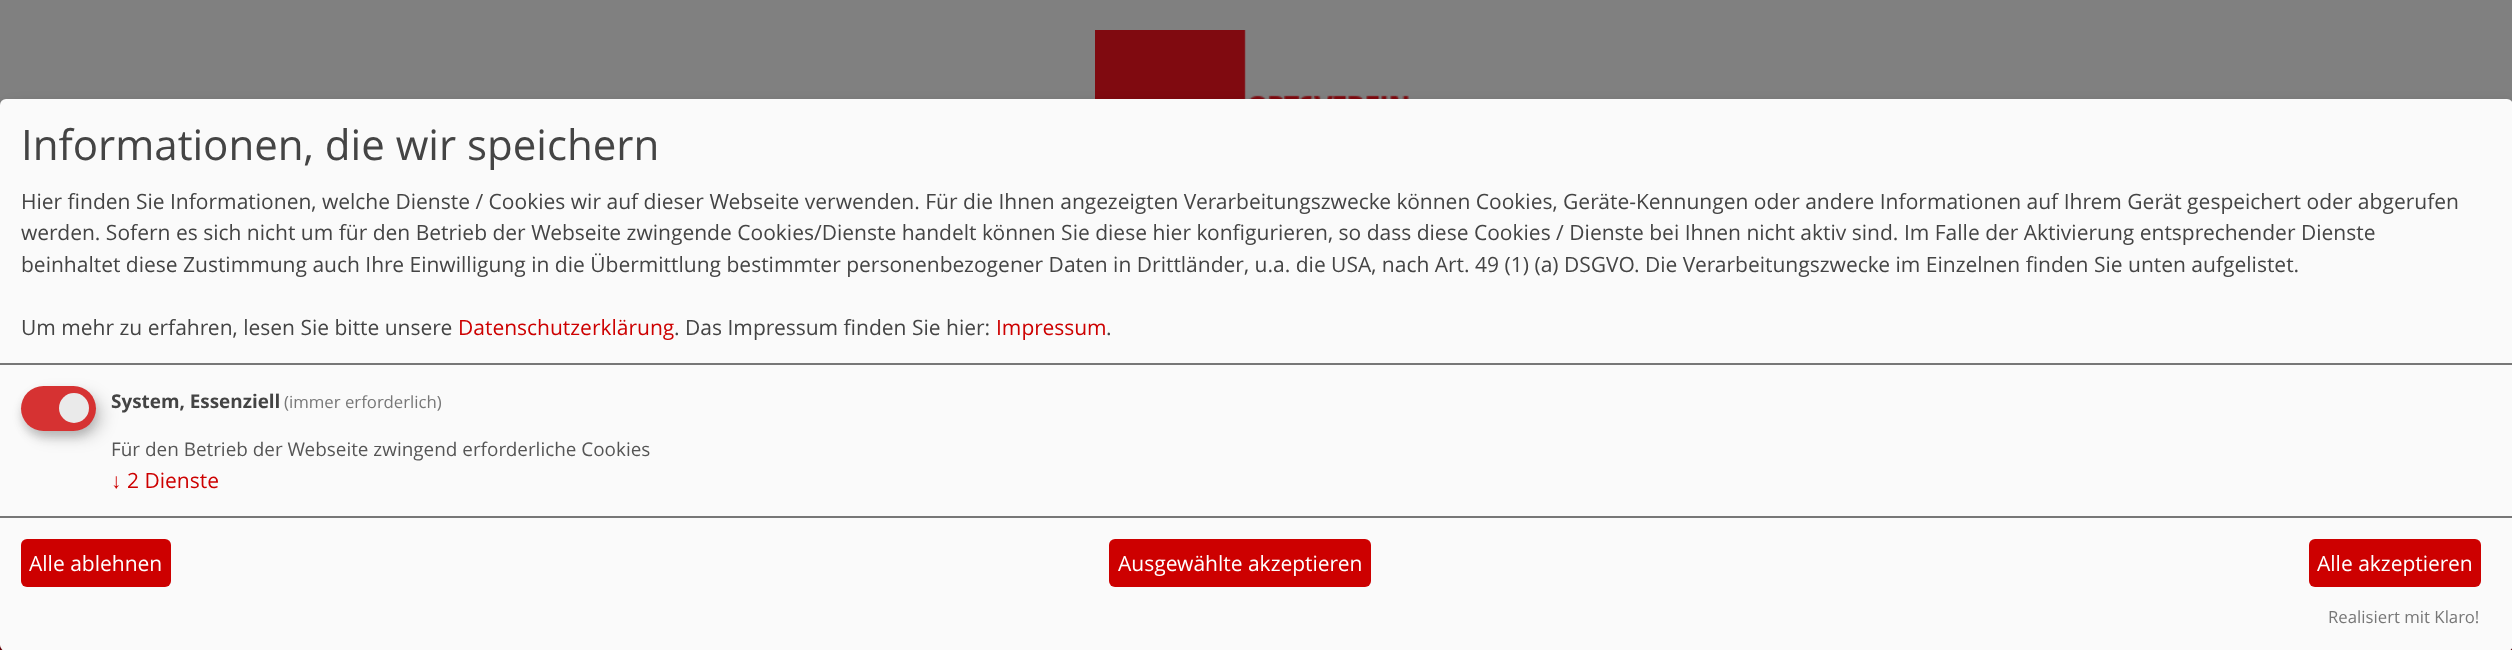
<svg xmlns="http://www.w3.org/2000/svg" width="2512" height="650">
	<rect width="100%" height="100%" fill="#808080" />
	<image x="1095" y="30" width="314" height="69" href="assets/img1.png" />
	<rect x="0" y="645" width="2512" height="5" fill="#720008" />
	<rect x="8" y="107" width="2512" height="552" rx="6" fill="#000000" fill-opacity="0.19" filter="blur(7.5px)" />
	<rect x="0" y="105" width="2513" height="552" rx="6" fill="#000000" fill-opacity="0.2" filter="blur(4.5px)" />
	<rect x="0" y="99" width="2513" height="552" rx="6" fill="#FAFAFA" />
	<rect x="0" y="363" width="2512" height="2" fill="#777777" />
	<text x="21" y="160" font-family="Open Sans" font-size="42" fill="#444444">Informationen, die wir speichern</text>
	<g font-family="Open Sans" font-size="21" fill="#444444">
		<text x="21" y="209">Hier finden Sie Informationen, welche Dienste / Cookies wir auf dieser Webseite verwenden. Für die Ihnen angezeigten Verarbeitungszwecke können Cookies, Geräte-Kennungen oder andere Informationen auf Ihrem Gerät gespeichert oder abgerufen</text>
		<text x="21" y="240">werden. Sofern es sich nicht um für den Betrieb der Webseite zwingende Cookies/Dienste handelt können Sie diese hier konfigurieren, so dass diese Cookies / Dienste bei Ihnen nicht aktiv sind. Im Falle der Aktivierung entsprechender Dienste</text>
		<text x="21" y="272">beinhaltet diese Zustimmung auch Ihre Einwilligung in die Übermittlung bestimmter personenbezogener Daten in Drittländer, u.a. die USA, nach Art. 49 (1) (a) DSGVO. Die Verarbeitungszwecke im Einzelnen finden Sie unten aufgelistet.</text>
		<text x="21" y="335">Um mehr zu erfahren, lesen Sie bitte unsere</text>
	</g>
	<text x="458" y="335" font-family="Open Sans" font-size="21" fill="#CD0000">Datenschutzerklärung</text>
	<text x="674" y="335" font-family="Open Sans" font-size="21" fill="#444444">. Das Impressum finden Sie hier:</text>
	<text x="996" y="335" font-family="Open Sans" font-size="21" fill="#CD0000">Impressum</text>
	<text x="1106" y="335" font-family="Open Sans" font-size="21" fill="#444444">.</text>
	<rect x="29" y="393" width="75" height="45" rx="22.5" fill="#000000" fill-opacity="0.15" filter="blur(7.5px)" />
	<rect x="21" y="392" width="75" height="45" rx="22.5" fill="#323232" fill-opacity="0.2" filter="blur(4.5px)" />
	<rect x="21" y="386" width="75" height="45" rx="22.5" fill="#D63232" />
	<circle cx="74" cy="408" r="15" fill="#EAEAEA" />
	<text x="111" y="408" font-family="Open Sans" font-size="18.9" font-weight="700" fill="#444444">System, Essenziell</text>
	<text x="284" y="408" font-family="Open Sans" font-size="16.75" fill="#777777">(immer erforderlich)</text>
	<text x="111" y="456" font-family="Open Sans" font-size="18.9" fill="#555555">Für den Betrieb der Webseite zwingend erforderliche Cookies</text>
	<text x="111" y="488" font-family="Liberation Sans" font-size="21" fill="#CD0000">↓</text>
	<text x="127" y="488" font-family="Open Sans" font-size="21" fill="#CD0000">2 Dienste</text>
	<rect x="0" y="516" width="2512" height="2" fill="#777777" />
	<rect x="21" y="539" width="150" height="48" rx="6" fill="#CD0000" />
	<text x="29" y="571" font-family="Open Sans" font-size="21" fill="#FFFFFF">Alle ablehnen</text>
	<rect x="1109" y="539" width="262" height="48" rx="6" fill="#CD0000" />
	<text x="1118" y="571" font-family="Open Sans" font-size="21" fill="#FFFFFF">Ausgewählte akzeptieren</text>
	<rect x="2309" y="539" width="172" height="48" rx="6" fill="#CD0000" />
	<text x="2317" y="571" font-family="Open Sans" font-size="21" fill="#FFFFFF">Alle akzeptieren</text>
	<text x="2328" y="623" font-family="Open Sans" font-size="16.75" fill="#777777">Realisiert mit Klaro!</text>
</svg>
